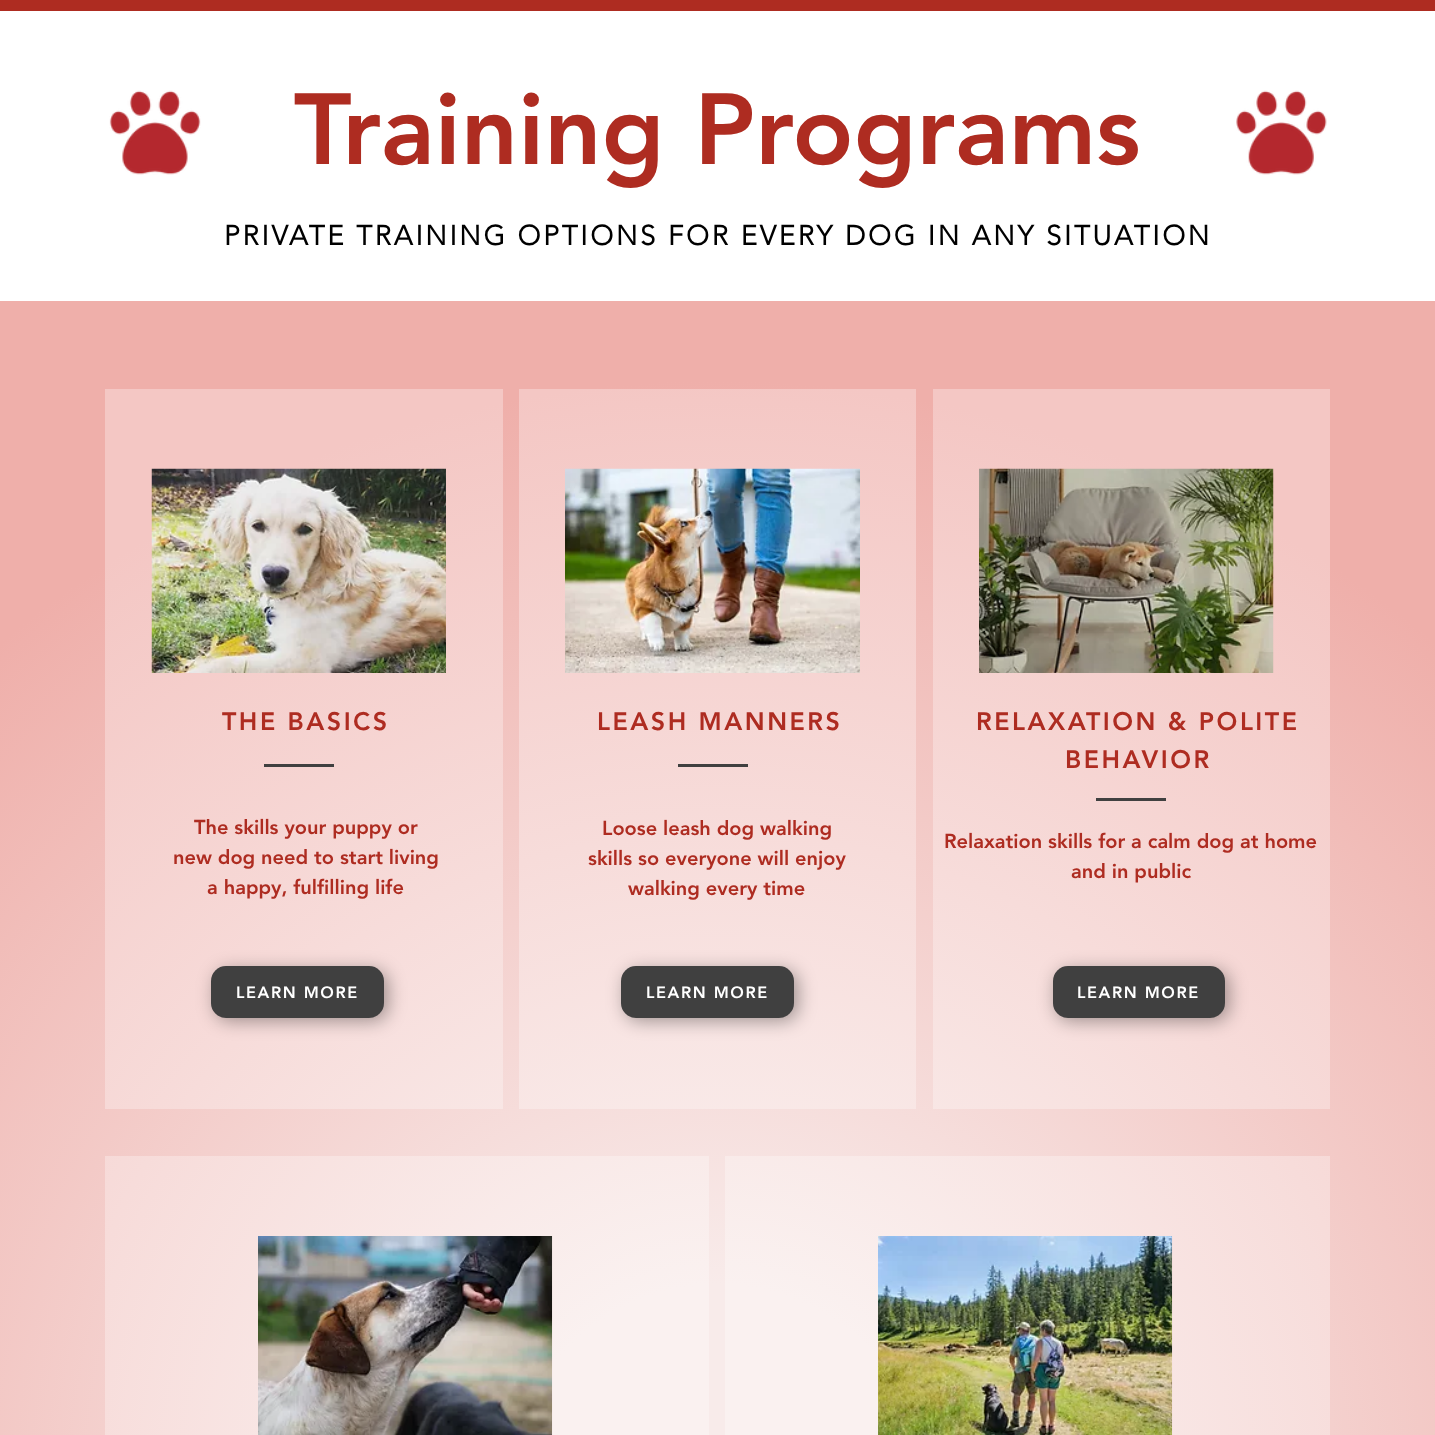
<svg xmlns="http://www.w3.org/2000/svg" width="1435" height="1435">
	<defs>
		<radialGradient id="g1" gradientUnits="userSpaceOnUse" cx="718" cy="1494" r="1392"><stop offset="0.15" stop-color="#F8EBEA" /><stop offset="0.8" stop-color="#EFAFAA" /></radialGradient>
		<radialGradient id="g2" gradientUnits="userSpaceOnUse" cx="718" cy="1494" r="1392"><stop offset="0.15" stop-color="#FAF1F0" /><stop offset="0.8" stop-color="#F4C7C4" /></radialGradient>
	</defs>
	<rect width="100%" height="100%" fill="#FFFFFF" />
	<rect x="0" y="0" width="1435" height="11" fill="#AE2C21" />
	<image x="109" y="90" width="92" height="85" href="assets/img1.png" />
	<text x="294" y="164" font-family="'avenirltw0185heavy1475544'" font-size="100" font-weight="900" fill="#AE2C21">Training Programs</text>
	<image x="1236" y="90" width="91" height="85" href="assets/img2.png" />
	<text x="224" y="245" font-family="'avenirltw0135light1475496'" font-size="27.5" font-weight="700" letter-spacing="2.75" fill="#000000">PRIVATE TRAINING OPTIONS FOR EVERY DOG IN ANY SITUATION</text>
	<rect x="0" y="301" width="1435" height="1134" fill="url(#g1)" />
	<rect x="725" y="1156" width="605" height="279" fill="url(#g2)" />
	<rect x="105" y="1156" width="604" height="279" fill="url(#g2)" />
	<rect x="933" y="389" width="397" height="720" fill="url(#g2)" />
	<rect x="519" y="389" width="397" height="720" fill="url(#g2)" />
	<rect x="105" y="389" width="398" height="720" fill="url(#g2)" />
	<image x="151" y="468" width="295" height="205" href="assets/img3.png" />
	<text x="222" y="730" font-family="'avenirltw0185heavy1475544'" font-size="25" font-weight="900" letter-spacing="2.5" fill="#AE2C21">THE BASICS</text>
	<rect x="264" y="764" width="70" height="3" fill="#404040" />
	<g font-family="'avenirltw0185heavy1475544'" font-size="20" font-weight="900" fill="#AE2C21">
		<text x="194" y="834">The skills your puppy or</text>
		<text x="173" y="864">new dog need to start living</text>
		<text x="207" y="894">a happy, fulfilling life</text>
	</g>
	<rect x="215" y="970" width="173" height="51" rx="15" fill="#000000" fill-opacity="0.36" filter="blur(9px)" />
	<rect x="211" y="966" width="173" height="52" rx="15" fill="#404040" />
	<text x="236" y="998" font-family="'avenirltw0185heavy1475544'" font-size="16.25" font-weight="900" letter-spacing="1.6" fill="#FFFFFF">LEARN MORE</text>
	<image x="565" y="468" width="295" height="205" href="assets/img4.png" />
	<text x="597" y="730" font-family="'avenirltw0185heavy1475544'" font-size="25" font-weight="900" letter-spacing="2.5" fill="#AE2C21">LEASH MANNERS</text>
	<rect x="678" y="764" width="70" height="3" fill="#404040" />
	<g font-family="'avenirltw0185heavy1475544'" font-size="20" font-weight="900" fill="#AE2C21">
		<text x="602" y="835">Loose leash dog walking</text>
		<text x="588" y="865">skills so everyone will enjoy</text>
		<text x="628" y="895">walking every time</text>
	</g>
	<rect x="625" y="970" width="173" height="51" rx="15" fill="#000000" fill-opacity="0.36" filter="blur(9px)" />
	<rect x="621" y="966" width="173" height="52" rx="15" fill="#404040" />
	<text x="646" y="998" font-family="'avenirltw0185heavy1475544'" font-size="16.25" font-weight="900" letter-spacing="1.6" fill="#FFFFFF">LEARN MORE</text>
	<image x="979" y="468" width="295" height="205" href="assets/img5.png" />
	<g font-family="'avenirltw0185heavy1475544'" font-size="25" font-weight="900" letter-spacing="2.5" fill="#AE2C21">
		<text x="976" y="730">RELAXATION &amp; POLITE</text>
		<text x="1065" y="768">BEHAVIOR</text>
	</g>
	<rect x="1096" y="798" width="70" height="3" fill="#404040" />
	<g font-family="'avenirltw0185heavy1475544'" font-size="20" font-weight="900" fill="#AE2C21">
		<text x="944" y="848">Relaxation skills for a calm dog at home</text>
		<text x="1071" y="878">and in public</text>
	</g>
	<rect x="1056" y="970" width="173" height="51" rx="15" fill="#000000" fill-opacity="0.36" filter="blur(9px)" />
	<rect x="1053" y="966" width="172" height="52" rx="15" fill="#404040" />
	<text x="1077" y="998" font-family="'avenirltw0185heavy1475544'" font-size="16.25" font-weight="900" letter-spacing="1.6" fill="#FFFFFF">LEARN MORE</text>
	<image x="258" y="1236" width="295" height="199" href="assets/img6.png" />
	<image x="878" y="1236" width="295" height="199" href="assets/img7.png" />
</svg>
